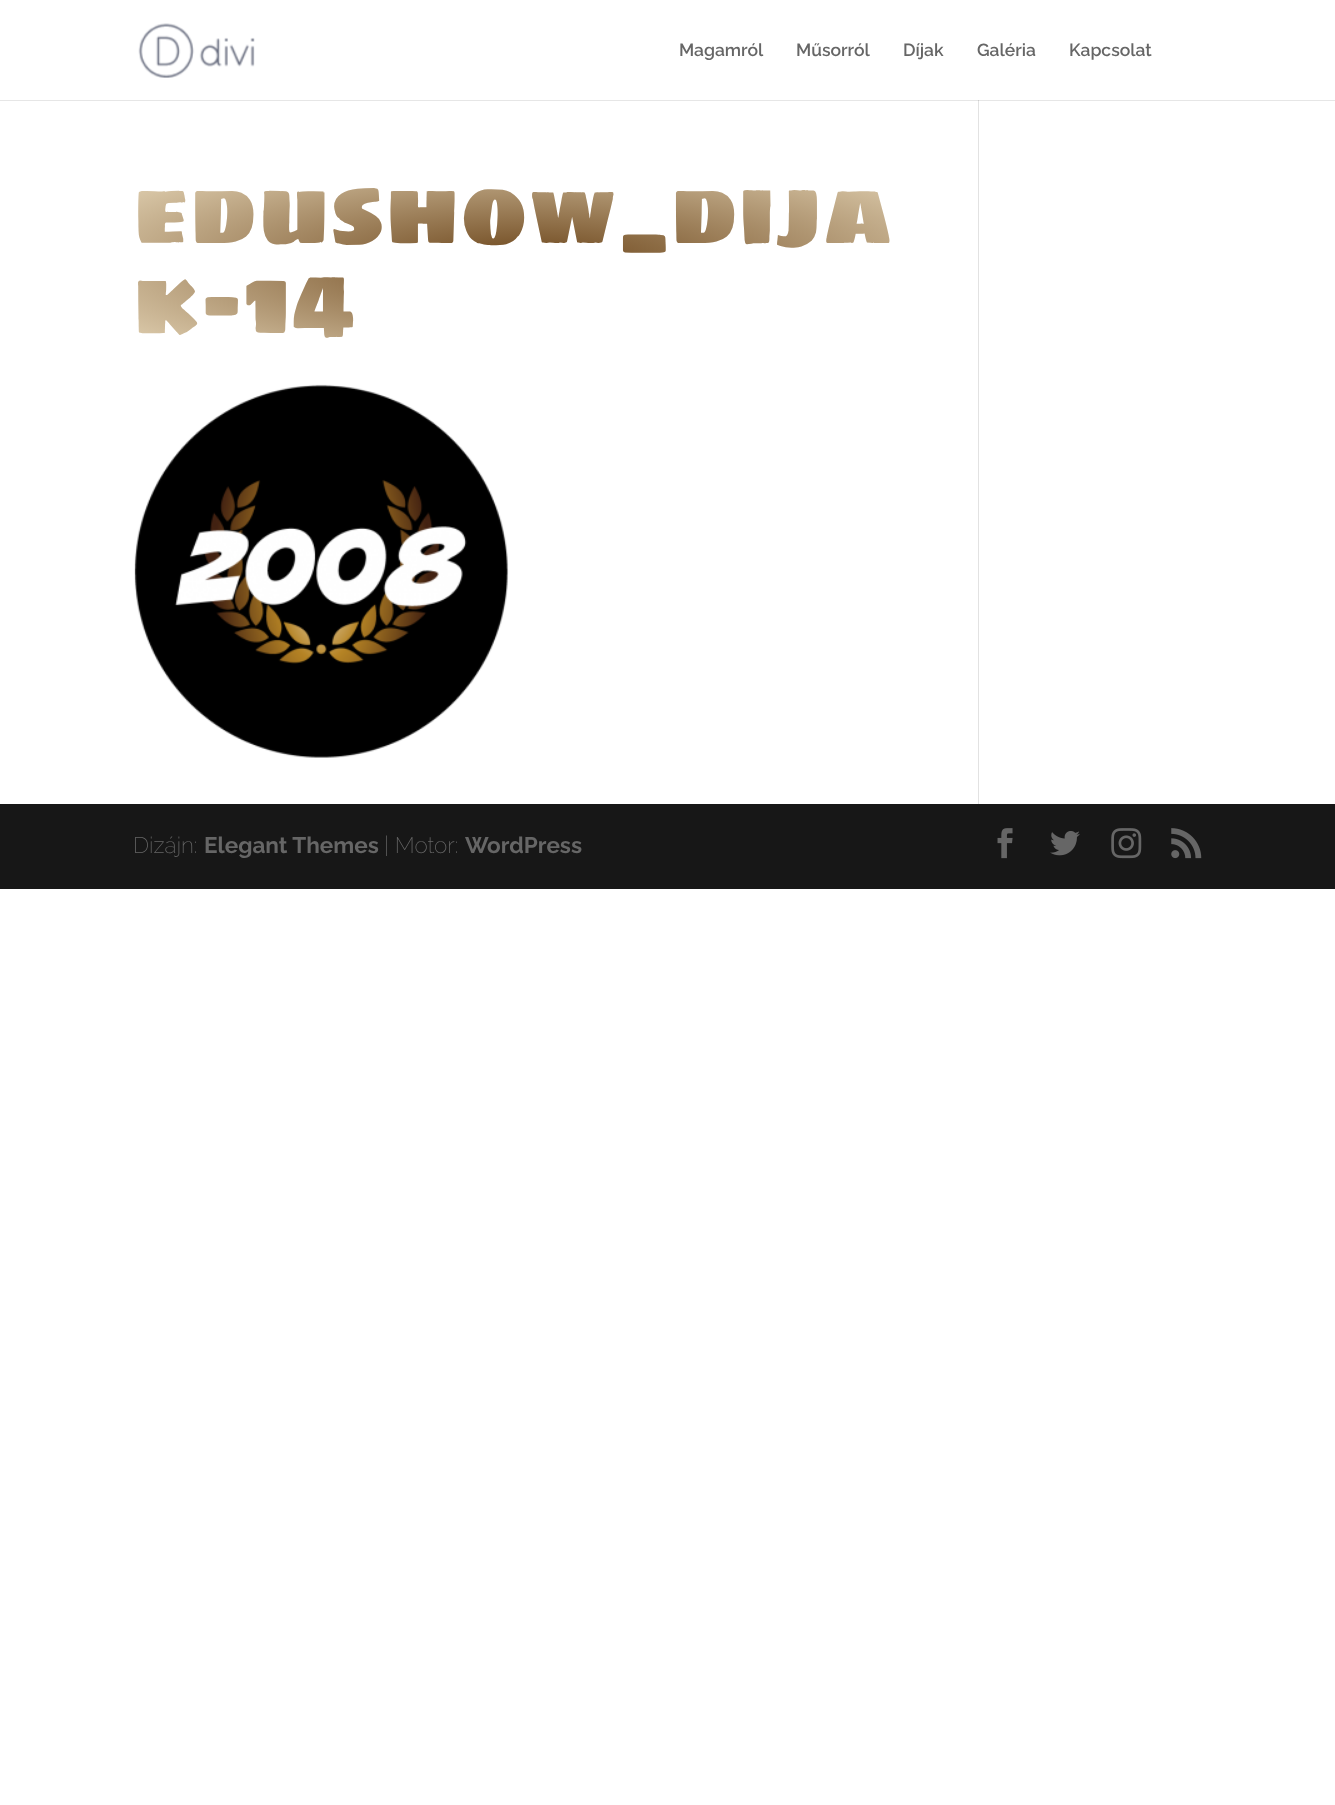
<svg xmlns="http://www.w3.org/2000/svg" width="1335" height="1805">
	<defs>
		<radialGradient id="g1" gradientUnits="userSpaceOnUse" cx="0" cy="0" r="1" gradientTransform="matrix(556 0 0 136 527 263)"><stop offset="0" stop-color="#6A4318" /><stop offset="1" stop-color="#E8D9BB" /></radialGradient>
	</defs>
	<rect width="100%" height="100%" fill="#FFFFFF" />
	<rect x="0" y="100" width="1335" height="1" fill="#E6E6E6" />
	<rect x="978" y="94" width="1" height="710" fill="#E2E2E2" />
	<rect x="978" y="94" width="1" height="6" fill="#FFFFFF" />
	<image x="138" y="23" width="117" height="55" href="assets/img1.png" />
	<g font-family="Raleway" font-size="17.5" font-weight="600" fill="#666666">
		<text x="679" y="56">Magamról</text>
		<text x="796" y="56">Műsorról</text>
		<text x="903" y="56">Díjak</text>
		<text x="977" y="56">Galéria</text>
		<text x="1069" y="56">Kapcsolat</text>
	</g>
	<g font-family="Sigmar One" font-size="90" fill="url(#g1)">
		<text x="133" y="243">edushow_dija</text>
		<text x="133" y="333">k-14</text>
	</g>
	<image x="134" y="384" width="375" height="374" href="assets/img2.png" />
	<rect x="978" y="100" width="1" height="1" fill="#CBCBCB" />
	<rect x="0" y="804" width="1335" height="85" fill="#171717" />
	<text x="133" y="853" font-family="Raleway" font-size="22.5" font-weight="200" fill="#666666">Dizájn:</text>
	<text x="204" y="853" font-family="Raleway" font-size="22.5" font-weight="700" fill="#666666">Elegant Themes</text>
	<text x="384" y="853" font-family="Raleway" font-size="22.5" font-weight="200" fill="#666666">| Motor:</text>
	<text x="465" y="853" font-family="Raleway" font-size="22.5" font-weight="700" fill="#666666">WordPress</text>
	<image x="997" y="828" width="16" height="31" href="assets/img3.png" />
	<image x="1050" y="831" width="30" height="25" href="assets/img4.png" />
	<image x="1111" y="828" width="31" height="31" href="assets/img5.png" />
	<image x="1171" y="828" width="31" height="31" href="assets/img6.png" />
</svg>
